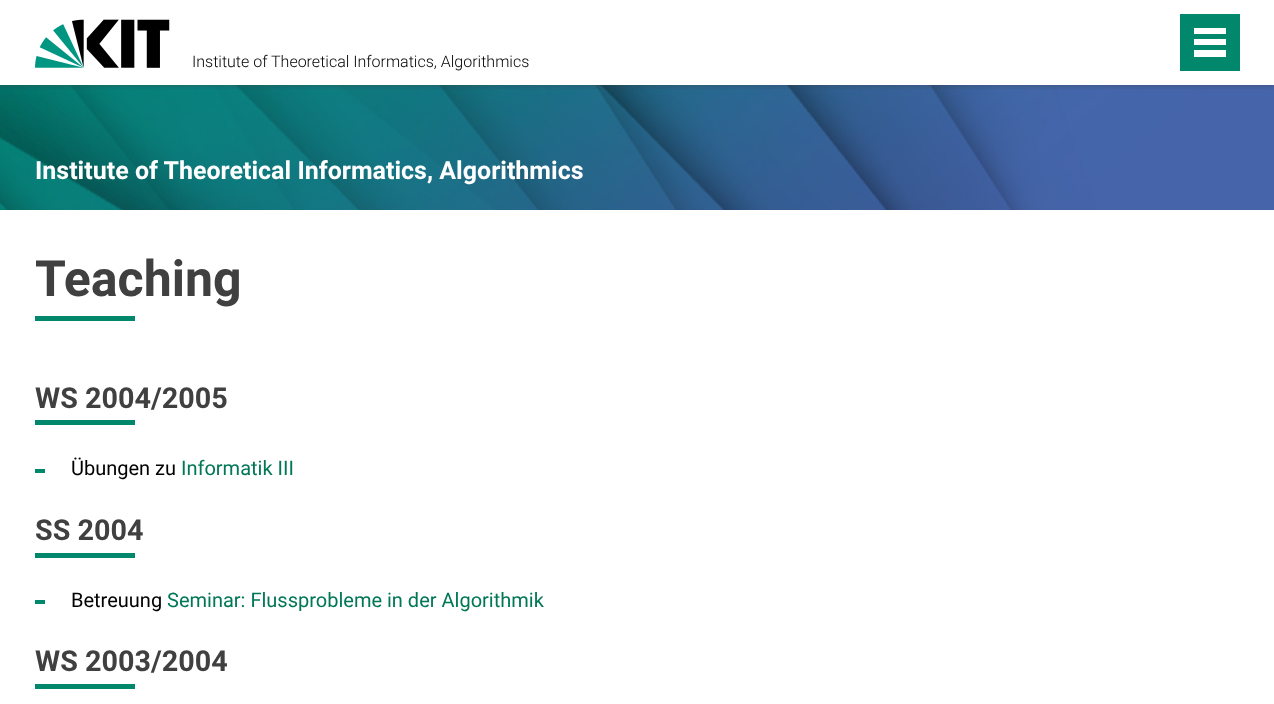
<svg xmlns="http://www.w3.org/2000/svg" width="1274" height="704">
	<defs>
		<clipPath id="clip1"><rect x="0" y="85" width="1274" height="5" /></clipPath>
	</defs>
	<rect width="100%" height="100%" fill="#FFFFFF" />
	<image x="0" y="85" width="1274" height="125" href="assets/img2.png" />
	<g clip-path="url(#clip1)">
		<rect x="0" y="0" width="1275" height="85" fill="#404040" fill-opacity="0.5" filter="blur(3px)" />
	</g>
	<image x="35" y="19" width="135" height="49" href="assets/img1.png" />
	<text x="192" y="67" font-family="Roboto" font-size="16" font-weight="300" fill="#000000">Institute of Theoretical Informatics, Algorithmics</text>
	<rect x="1180" y="14" width="60" height="57" fill="#00876C" />
	<rect x="1194" y="50" width="32" height="7" fill="#FFFFFF" />
	<rect x="1194" y="39" width="32" height="6" fill="#FFFFFF" />
	<rect x="1194" y="28" width="32" height="6" fill="#FFFFFF" />
	<text x="35" y="179" font-family="Roboto" font-size="25" font-weight="700" fill="#FFFFFF">Institute of Theoretical Informatics, Algorithmics</text>
	<text x="35" y="296" font-family="Roboto" font-size="50" font-weight="700" fill="#404040">Teaching</text>
	<rect x="35" y="316" width="100" height="5" fill="#00876C" />
	<text x="35" y="408" font-family="Roboto" font-size="28.75" font-weight="700" fill="#404040">WS 2004/2005</text>
	<rect x="35" y="420" width="100" height="5" fill="#00876C" />
	<rect x="35" y="469" width="10" height="4" fill="#00876C" />
	<text x="71" y="475" font-family="Roboto" font-size="20" fill="#000000">Übungen zu</text>
	<text x="181" y="475" font-family="Roboto" font-size="20" fill="#007755">Informatik III</text>
	<text x="35" y="540" font-family="Roboto" font-size="28.75" font-weight="700" fill="#404040">SS 2004</text>
	<rect x="35" y="553" width="100" height="5" fill="#00876C" />
	<rect x="35" y="600" width="10" height="4" fill="#00876C" />
	<text x="71" y="607" font-family="Roboto" font-size="20" fill="#000000">Betreuung</text>
	<text x="167" y="607" font-family="Roboto" font-size="20" fill="#007755">Seminar: Flussprobleme in der Algorithmik</text>
	<text x="35" y="671" font-family="Roboto" font-size="28.75" font-weight="700" fill="#404040">WS 2003/2004</text>
	<rect x="35" y="684" width="100" height="5" fill="#00876C" />
</svg>
